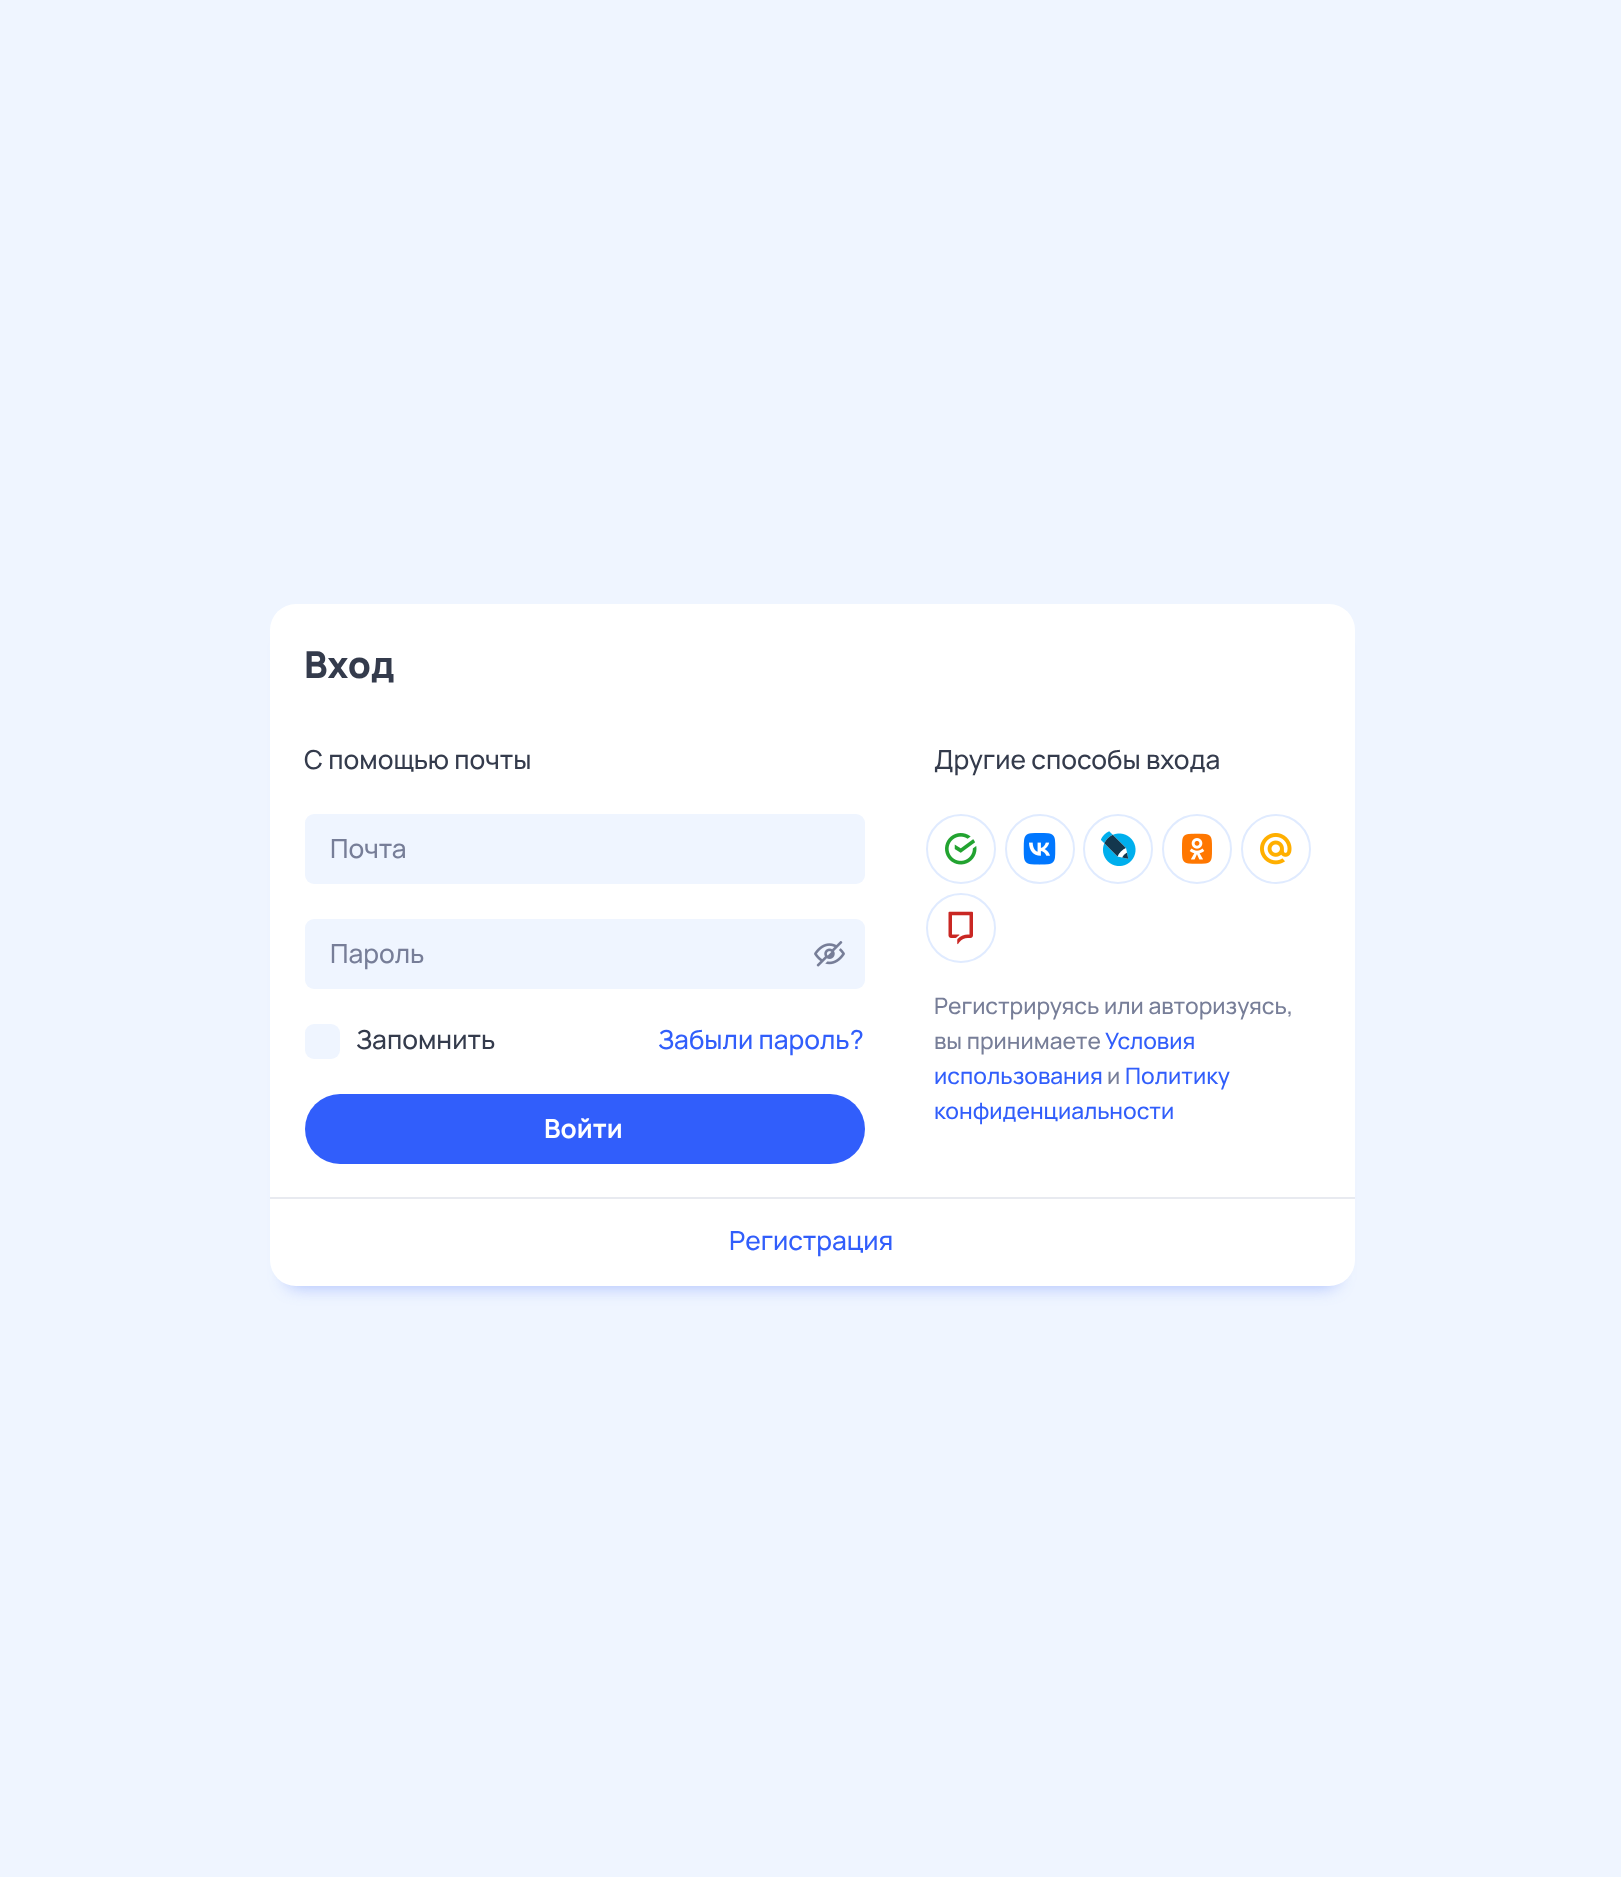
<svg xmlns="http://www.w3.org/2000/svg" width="1621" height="1877">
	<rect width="100%" height="100%" fill="#EFF5FF" />
	<rect x="287" y="639" width="1050" height="647" rx="9" fill="#315EFB" fill-opacity="0.4" filter="blur(9px)" />
	<rect x="270" y="604" width="1085" height="682" rx="26" fill="#FFFFFF" />
	<text x="304" y="678" font-family="Manrope" font-size="37" font-weight="800" fill="#343B4C">Вход</text>
	<text x="304" y="769" font-family="Manrope" font-size="26.25" font-weight="500" fill="#343B4C">С помощью почты</text>
	<rect x="305" y="814" width="560" height="70" rx="9" fill="#EFF5FF" />
	<text x="330" y="858" font-family="Manrope" font-size="26.25" font-weight="500" fill="#777E98">Почта</text>
	<rect x="305" y="919" width="560" height="70" rx="9" fill="#EFF5FF" />
	<text x="330" y="963" font-family="Manrope" font-size="26.25" font-weight="500" fill="#777E98">Пароль</text>
	<image x="814" y="941" width="31" height="26" href="assets/img1.png" />
	<rect x="305" y="1024" width="35" height="35" rx="9" fill="#EFF5FF" />
	<text x="356" y="1049" font-family="Manrope" font-size="26.25" font-weight="500" fill="#343B4C">Запомнить</text>
	<text x="658" y="1049" font-family="Manrope" font-size="26.25" font-weight="500" fill="#315EFB">Забыли пароль?</text>
	<rect x="305" y="1094" width="560" height="70" rx="35" fill="#315EFB" />
	<text x="544" y="1138" font-family="Manrope" font-size="26.25" font-weight="700" fill="#FFFFFF">Войти</text>
	<text x="934" y="769" font-family="Manrope" font-size="26.25" font-weight="500" fill="#343B4C">Другие способы входа</text>
	<image x="945" y="833" width="32" height="32" href="assets/img2.png" />
	<circle cx="961" cy="849" r="34" fill="none" stroke="#E0EBFF" stroke-width="2" />
	<image x="1023" y="833" width="33" height="32" href="assets/img3.png" />
	<circle cx="1040" cy="849" r="34" fill="none" stroke="#E0EBFF" stroke-width="2" />
	<image x="1101" y="831" width="35" height="35" href="assets/img4.png" />
	<circle cx="1118" cy="849" r="34" fill="none" stroke="#E0EBFF" stroke-width="2" />
	<image x="1182" y="833" width="30" height="31" href="assets/img5.png" />
	<circle cx="1197" cy="849" r="34" fill="none" stroke="#E0EBFF" stroke-width="2" />
	<image x="1260" y="833" width="32" height="32" href="assets/img6.png" />
	<circle cx="1276" cy="849" r="34" fill="none" stroke="#E0EBFF" stroke-width="2" />
	<image x="948" y="911" width="25" height="34" href="assets/img7.png" />
	<circle cx="961" cy="928" r="34" fill="none" stroke="#E0EBFF" stroke-width="2" />
	<g font-family="Manrope" font-size="22.75" font-weight="500" fill="#777E98">
		<text x="934" y="1014">Регистрируясь или авторизуясь,</text>
		<text x="934" y="1049">вы принимаете</text>
	</g>
	<g font-family="Manrope" font-size="22.75" font-weight="500" fill="#315EFB">
		<text x="1105" y="1049">Условия</text>
		<text x="934" y="1084">использования</text>
	</g>
	<text x="1107" y="1084" font-family="Manrope" font-size="22.75" font-weight="500" fill="#777E98">и</text>
	<g font-family="Manrope" font-size="22.75" font-weight="500" fill="#315EFB">
		<text x="1125" y="1084">Политику</text>
		<text x="934" y="1119">конфиденциальности</text>
	</g>
	<rect x="270" y="1197" width="1085" height="2" fill="#E8EAF0" />
	<text x="729" y="1250" font-family="Manrope" font-size="26.25" font-weight="500" fill="#315EFB">Регистрация</text>
</svg>
